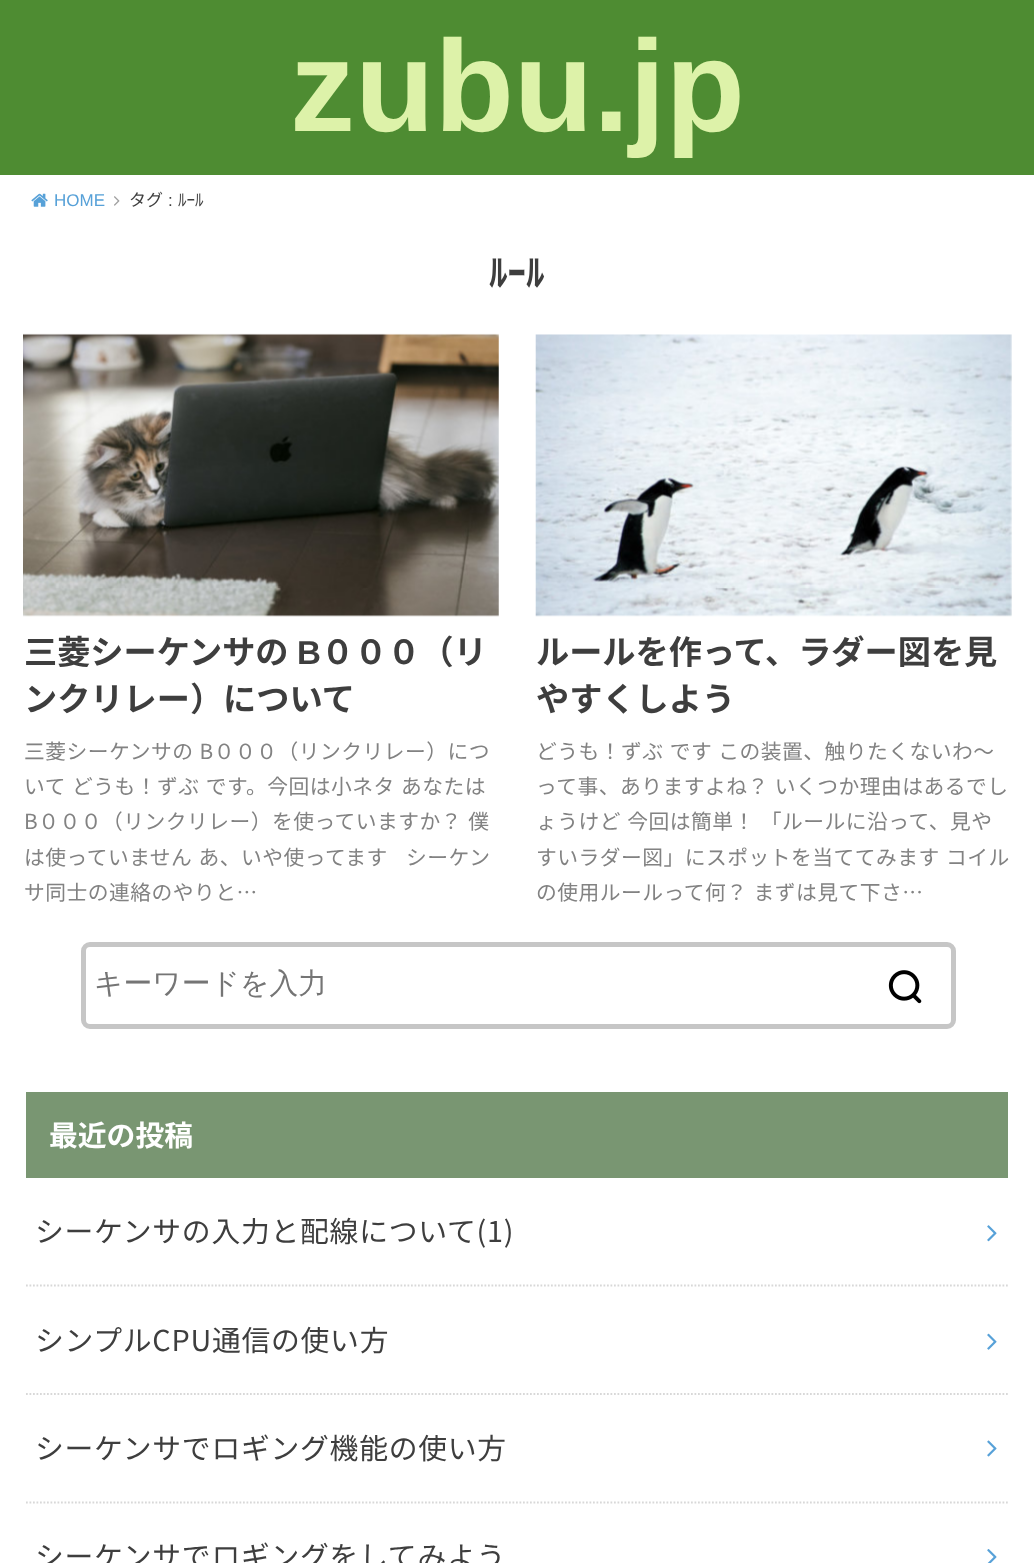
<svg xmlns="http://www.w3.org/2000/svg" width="1034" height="1563">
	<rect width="100%" height="100%" fill="#FFFFFF" />
	<rect x="0" y="0" width="1034" height="175" fill="#4E8C32" />
	<text x="290" y="131" font-family="Liberation Sans" font-size="130" font-weight="700" fill="#DDF2A9">zubu.jp</text>
	<image x="31" y="193" width="17" height="14" href="assets/img1.png" />
	<text x="54" y="206" font-family="Liberation Sans" font-size="17" fill="#57A1D8">HOME</text>
	<image x="114" y="196" width="6" height="10" href="assets/img2.png" />
	<text x="129" y="206" font-family="Noto Sans JP" font-size="17" fill="#3E3E3E">タグ</text>
	<text x="168" y="206" font-family="Liberation Sans" font-size="17" fill="#3E3E3E">:</text>
	<text x="178" y="206" font-family="Noto Sans JP" font-size="17" fill="#3E3E3E">ﾙｰﾙ</text>
	<text x="489" y="286" font-family="Noto Sans JP" font-size="37" font-weight="700" fill="#3E3E3E">ﾙｰﾙ</text>
	<image x="23" y="333" width="476" height="284" href="assets/img3.png" />
	<text x="24" y="664" font-family="Noto Sans JP" font-size="33.2" font-weight="700" fill="#3E3E3E">三菱シーケンサの</text>
	<text x="297" y="664" font-family="Liberation Sans" font-size="33.2" font-weight="700" fill="#3E3E3E">B</text>
	<g font-family="Noto Sans JP" font-size="33.2" font-weight="700" fill="#3E3E3E">
		<text x="321" y="664">０００（リ</text>
		<text x="24" y="711">ンクリレー）について</text>
	</g>
	<g font-family="Noto Sans JP" font-size="20.75" letter-spacing="0.5" fill="#828282">
		<text x="24" y="759" word-spacing="1">三菱シーケンサの B０００（リンクリレー）につ</text>
		<text x="24" y="794" word-spacing="1">いて どうも！ずぶ です。今回は小ネタ あなたは</text>
		<text x="24" y="829" word-spacing="1">B０００（リンクリレー）を使っていますか？ 僕</text>
		<text x="24" y="865" word-spacing="1" xml:space="preserve">は使っていません あ、いや使ってます   シーケン</text>
		<text x="24" y="900">サ同士の連絡のやりと…</text>
	</g>
	<image x="535" y="334" width="477" height="283" href="assets/img4.png" />
	<g font-family="Noto Sans JP" font-size="33.2" font-weight="700" fill="#3E3E3E">
		<text x="536" y="664">ルールを作って、ラダー図を見</text>
		<text x="536" y="711">やすくしよう</text>
	</g>
	<g font-family="Noto Sans JP" font-size="20.75" letter-spacing="0.5" fill="#828282">
		<text x="536" y="759" word-spacing="1">どうも！ずぶ です この装置、触りたくないわ～</text>
		<text x="536" y="794" word-spacing="1">って事、ありますよね？ いくつか理由はあるでし</text>
		<text x="536" y="829" word-spacing="1">ょうけど 今回は簡単！ 「ルールに沿って、見や</text>
		<text x="536" y="865" word-spacing="1">すいラダー図」にスポットを当ててみます コイル</text>
		<text x="536" y="900" word-spacing="1">の使用ルールって何？ まずは見て下さ…</text>
	</g>
	<rect x="83.5" y="944.5" width="870" height="82" rx="6.5" fill="none" stroke="#C6C6C6" stroke-width="5" />
	<text x="94" y="993" font-family="WenQuanYi Zen Hei" font-size="28.8" font-weight="500" fill="#757575">キーワードを入力</text>
	<image x="888" y="970" width="34" height="34" href="assets/img5.png" />
	<rect x="26" y="1092" width="982" height="86" fill="#799672" />
	<text x="49" y="1146" font-family="Noto Sans JP" font-size="28.8" font-weight="700" fill="#FFFFFF">最近の投稿</text>
	<path d="M26 1285.5H1008" fill="none" stroke="#D8D8D8" stroke-width="1.8" stroke-dasharray="1.75 1.75" />
	<text x="35" y="1242" font-family="Noto Sans JP" font-size="28.8" letter-spacing="0.75" fill="#3E3E3E">シーケンサの入力と配線について(1)</text>
	<image x="987" y="1225" width="10" height="17" href="assets/img6.png" />
	<path d="M26 1394H1008" fill="none" stroke="#D8D8D8" stroke-width="1.8" stroke-dasharray="1.75 1.75" />
	<text x="35" y="1351" font-family="Noto Sans JP" font-size="28.8" letter-spacing="0.75" fill="#3E3E3E">シンプルCPU通信の使い方</text>
	<image x="987" y="1333" width="10" height="17" href="assets/img7.png" />
	<path d="M26 1502.5H1008" fill="none" stroke="#D8D8D8" stroke-width="1.8" stroke-dasharray="1.75 1.75" />
	<text x="35" y="1459" font-family="Noto Sans JP" font-size="28.8" letter-spacing="0.75" fill="#3E3E3E">シーケンサでロギング機能の使い方</text>
	<image x="987" y="1440" width="10" height="17" href="assets/img8.png" />
	<text x="35" y="1567" font-family="Noto Sans JP" font-size="28.8" letter-spacing="0.75" fill="#3E3E3E">シーケンサでロギングをしてみよう</text>
	<image x="987" y="1549" width="10" height="14" href="assets/img9.png" />
</svg>
